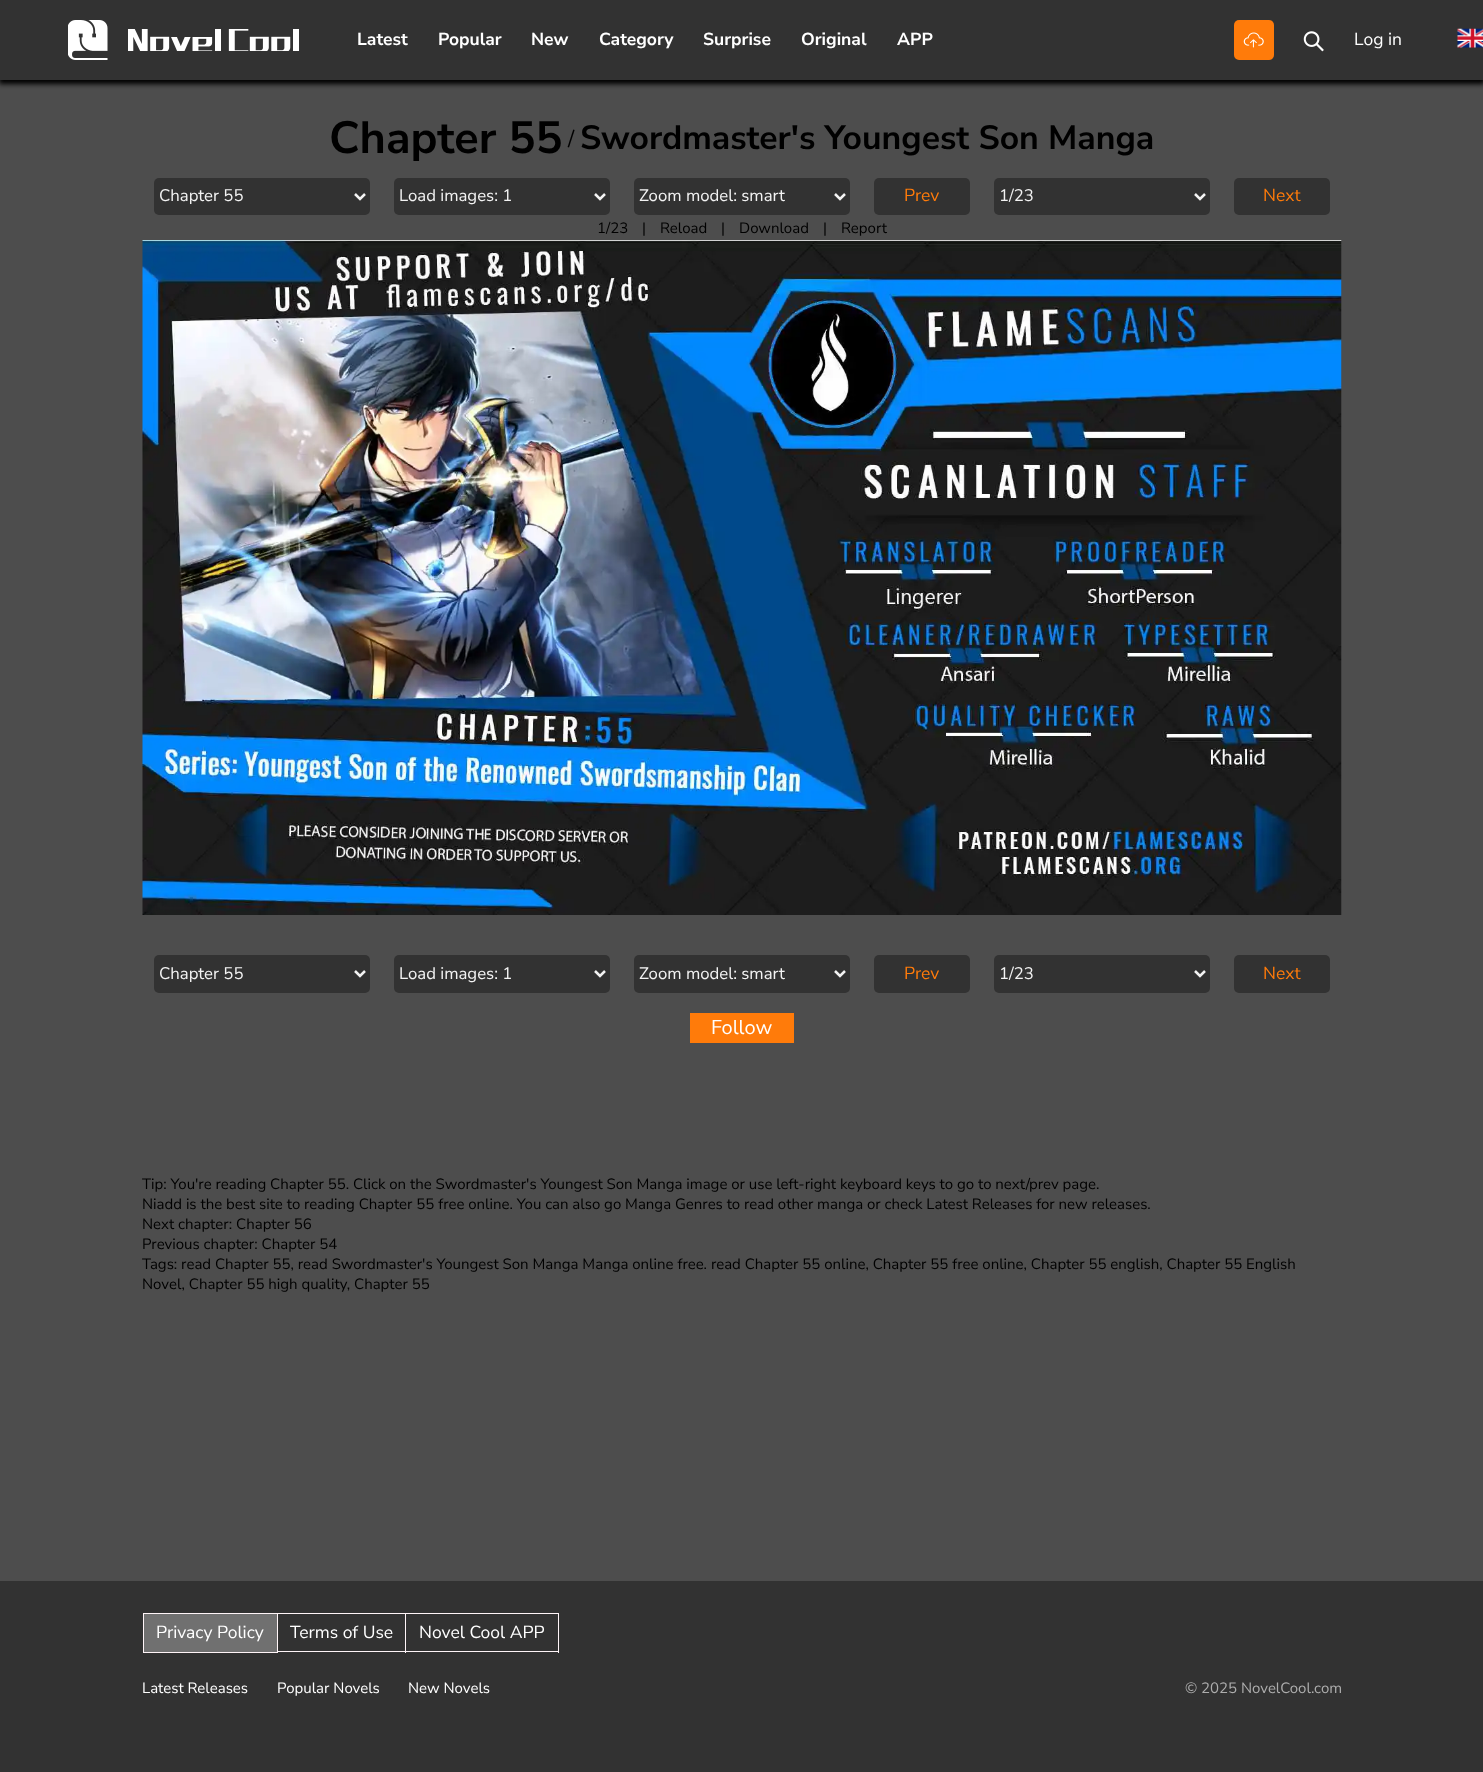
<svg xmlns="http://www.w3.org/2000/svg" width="1483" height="1772">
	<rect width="100%" height="100%" fill="#4D4D4D" />
	<rect x="-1" y="1" width="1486" height="83" fill="#000000" filter="blur(2.5px)" />
	<rect x="0" y="0" width="1483" height="80" fill="#323232" />
	<image x="68" y="20" width="40" height="40" href="assets/img1.png" />
	<image x="128" y="29" width="171" height="22" href="assets/img2.png" />
	<g font-family="Nunito Sans" font-size="17.5" font-weight="700" fill="#FFFFFF">
		<text x="357" y="45">Latest</text>
		<text x="438" y="45">Popular</text>
		<text x="531" y="45">New</text>
		<text x="599" y="45">Category</text>
		<text x="703" y="45">Surprise</text>
		<text x="801" y="45">Original</text>
		<text x="897" y="45">APP</text>
	</g>
	<rect x="1234" y="20" width="40" height="40" rx="5" fill="#FF7B0A" />
	<image x="1243" y="32" width="21" height="16" href="assets/img3.png" />
	<image x="1303" y="31" width="21" height="21" href="assets/img4.png" />
	<text x="1354" y="45" font-family="Nunito Sans" font-size="17.5" fill="#FFFFFF">Log in</text>
	<image x="1457" y="28" width="26" height="20" href="assets/img5.png" />
	<text x="329" y="153" font-family="Nunito Sans" font-size="45" font-weight="700" fill="#000000">Chapter 55</text>
	<text x="568" y="146" font-family="Nunito Sans" font-size="22" fill="#000000">/</text>
	<text x="580" y="149" font-family="Nunito Sans" font-size="33.75" font-weight="700" fill="#000000">Swordmaster's Youngest Son Manga</text>
	<rect x="154" y="178" width="216" height="37" rx="5" fill="#323232" />
	<path d="M355 194L360 199L365 194" fill="none" stroke="#F3F3F3" stroke-width="2.5" />
	<text x="159" y="201" font-family="Nunito Sans" font-size="16.75" fill="#F3F3F3">Chapter 55</text>
	<rect x="394" y="178" width="216" height="37" rx="5" fill="#323232" />
	<path d="M595 194L600 199L605 194" fill="none" stroke="#F3F3F3" stroke-width="2.5" />
	<text x="399" y="201" font-family="Nunito Sans" font-size="16.75" fill="#F3F3F3">Load images: 1</text>
	<rect x="634" y="178" width="216" height="37" rx="5" fill="#323232" />
	<path d="M835 194L840 199L845 194" fill="none" stroke="#F3F3F3" stroke-width="2.5" />
	<text x="639" y="201" font-family="Nunito Sans" font-size="16.75" fill="#F3F3F3">Zoom model: smart</text>
	<rect x="874" y="178" width="96" height="37" rx="5" fill="#323232" />
	<text x="904" y="201" font-family="Nunito Sans" font-size="17.5" fill="#FF7B0A">Prev</text>
	<rect x="994" y="178" width="216" height="37" rx="5" fill="#323232" />
	<path d="M1195 194L1200 199L1205 194" fill="none" stroke="#F3F3F3" stroke-width="2.5" />
	<text x="999" y="201" font-family="Nunito Sans" font-size="16.75" fill="#F3F3F3">1/23</text>
	<rect x="1234" y="178" width="96" height="37" rx="5" fill="#323232" />
	<text x="1263" y="201" font-family="Nunito Sans" font-size="17.5" fill="#FF7B0A">Next</text>
	<g font-family="Nunito Sans" font-size="15" fill="#000000">
		<text x="597" y="233">1/23</text>
		<text x="642" y="233">|</text>
		<text x="660" y="233">Reload</text>
		<text x="721" y="233">|</text>
		<text x="739" y="233">Download</text>
		<text x="823" y="233">|</text>
		<text x="841" y="233">Report</text>
	</g>
	<image x="142" y="240" width="1200" height="675" href="assets/img6.png" />
	<rect x="154" y="955" width="216" height="38" rx="5" fill="#323232" />
	<path d="M355 971L360 976L365 971" fill="none" stroke="#F3F3F3" stroke-width="2.5" />
	<text x="159" y="979" font-family="Nunito Sans" font-size="16.75" fill="#F3F3F3">Chapter 55</text>
	<rect x="394" y="955" width="216" height="38" rx="5" fill="#323232" />
	<path d="M595 971L600 976L605 971" fill="none" stroke="#F3F3F3" stroke-width="2.5" />
	<text x="399" y="979" font-family="Nunito Sans" font-size="16.75" fill="#F3F3F3">Load images: 1</text>
	<rect x="634" y="955" width="216" height="38" rx="5" fill="#323232" />
	<path d="M835 971L840 976L845 971" fill="none" stroke="#F3F3F3" stroke-width="2.5" />
	<text x="639" y="979" font-family="Nunito Sans" font-size="16.75" fill="#F3F3F3">Zoom model: smart</text>
	<rect x="874" y="955" width="96" height="38" rx="5" fill="#323232" />
	<text x="904" y="979" font-family="Nunito Sans" font-size="17.5" fill="#FF7B0A">Prev</text>
	<rect x="994" y="955" width="216" height="38" rx="5" fill="#323232" />
	<path d="M1195 971L1200 976L1205 971" fill="none" stroke="#F3F3F3" stroke-width="2.5" />
	<text x="999" y="979" font-family="Nunito Sans" font-size="16.75" fill="#F3F3F3">1/23</text>
	<rect x="1234" y="955" width="96" height="38" rx="5" fill="#323232" />
	<text x="1263" y="979" font-family="Nunito Sans" font-size="17.5" fill="#FF7B0A">Next</text>
	<rect x="690" y="1013" width="104" height="30" fill="#FF7B0A" />
	<text x="711" y="1034" font-family="Nunito Sans" font-size="20" fill="#FFFFFF">Follow</text>
	<g font-family="Nunito Sans" font-size="15" fill="#000000">
		<text x="142" y="1189">Tip: You're reading Chapter 55. Click on the Swordmaster's Youngest Son Manga image or use left-right keyboard keys to go to next/prev page.</text>
		<text x="142" y="1209">Niadd is the best site to reading Chapter 55 free online. You can also go Manga Genres to read other manga or check Latest Releases for new releases.</text>
		<text x="142" y="1229">Next chapter: Chapter 56</text>
		<text x="142" y="1249">Previous chapter: Chapter 54</text>
		<text x="142" y="1269">Tags: read Chapter 55, read Swordmaster's Youngest Son Manga Manga online free. read Chapter 55 online, Chapter 55 free online, Chapter 55 english, Chapter 55 English</text>
		<text x="142" y="1289">Novel, Chapter 55 high quality, Chapter 55</text>
	</g>
	<rect x="0" y="1581" width="1483" height="191" fill="#323232" />
	<rect x="143.5" y="1613.5" width="134" height="39" fill="#707070" stroke="#FFF5F8" />
	<text x="156" y="1638" font-family="Nunito Sans" font-size="17.5" fill="#FFFFFF">Privacy Policy</text>
	<rect x="278" y="1613" width="281" height="1" fill="#FFF5F8" />
	<rect x="405" y="1613" width="1" height="40" fill="#FFF5F8" />
	<rect x="278" y="1651" width="128" height="1" fill="#FFF5F8" />
	<text x="290" y="1638" font-family="Nunito Sans" font-size="17.5" fill="#FFFFFF">Terms of Use</text>
	<rect x="558" y="1613" width="1" height="40" fill="#FFF5F8" />
	<rect x="406" y="1651" width="153" height="1" fill="#FFF5F8" />
	<text x="419" y="1638" font-family="Nunito Sans" font-size="17.5" fill="#FFFFFF">Novel Cool APP</text>
	<g font-family="Nunito Sans" font-size="15" fill="#FFFFFF">
		<text x="142" y="1693">Latest Releases</text>
		<text x="277" y="1693">Popular Novels</text>
		<text x="408" y="1693">New Novels</text>
	</g>
	<text x="1185" y="1693" font-family="Nunito Sans" font-size="15" fill="#ADADAD">© 2025 NovelCool.com</text>
</svg>
